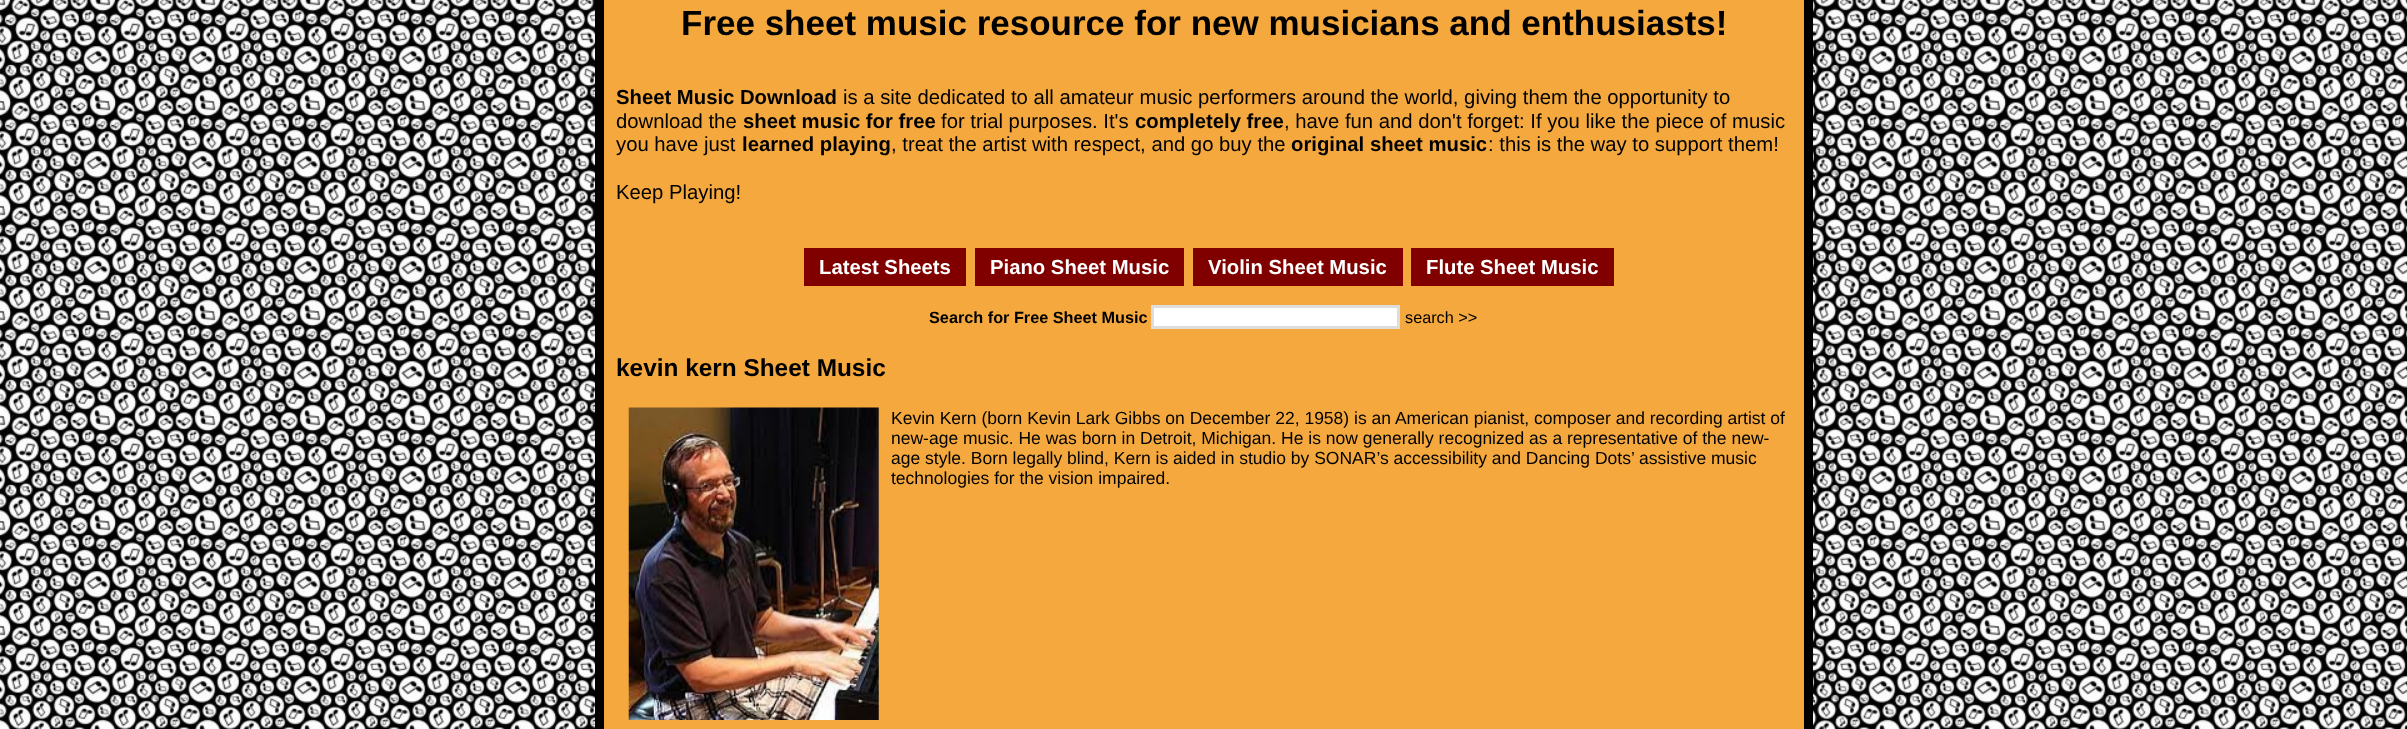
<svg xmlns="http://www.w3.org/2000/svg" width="2407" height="729">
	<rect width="100%" height="100%" fill="#FFFFFF" />
	<image x="0" y="0" width="2407" height="729" href="assets/img1.png" />
	<rect x="604" y="0" width="1200" height="729" fill="#F4A83D" />
	<rect x="1804" y="0" width="9" height="729" fill="#000000" />
	<rect x="595" y="0" width="9" height="729" fill="#000000" />
	<text x="681" y="35" font-family="Liberation Sans" font-size="35" font-weight="700" fill="#000000">Free sheet music resource for new musicians and enthusiasts!</text>
	<text x="616" y="104" font-family="Liberation Sans" font-size="20.3" font-weight="700" fill="#000000">Sheet Music Download</text>
	<g font-family="Liberation Sans" font-size="20.3" fill="#000000">
		<text x="843" y="104">is a site dedicated to all amateur music performers around the world, giving them the opportunity to</text>
		<text x="616" y="128">download the</text>
	</g>
	<text x="743" y="128" font-family="Liberation Sans" font-size="20.3" font-weight="700" fill="#000000">sheet music for free</text>
	<text x="941" y="128" font-family="Liberation Sans" font-size="20.3" fill="#000000">for trial purposes. It's</text>
	<text x="1135" y="128" font-family="Liberation Sans" font-size="20.3" font-weight="700" fill="#000000">completely free</text>
	<g font-family="Liberation Sans" font-size="20.3" fill="#000000">
		<text x="1284" y="128">, have fun and don't forget: If you like the piece of music</text>
		<text x="616" y="151">you have just</text>
	</g>
	<text x="742" y="151" font-family="Liberation Sans" font-size="20.3" font-weight="700" fill="#000000">learned playing</text>
	<text x="891" y="151" font-family="Liberation Sans" font-size="20.3" fill="#000000">, treat the artist with respect, and go buy the</text>
	<text x="1291" y="151" font-family="Liberation Sans" font-size="20.3" font-weight="700" fill="#000000">original sheet music</text>
	<g font-family="Liberation Sans" font-size="20.3" fill="#000000">
		<text x="1488" y="151">: this is the way to support them!</text>
		<text x="616" y="199">Keep Playing!</text>
	</g>
	<rect x="804" y="248" width="162" height="38" fill="#800000" />
	<text x="819" y="274" font-family="Liberation Sans" font-size="20.3" font-weight="700" fill="#FFFFFF">Latest Sheets</text>
	<rect x="975" y="248" width="209" height="38" fill="#800000" />
	<text x="990" y="274" font-family="Liberation Sans" font-size="20.3" font-weight="700" fill="#FFFFFF">Piano Sheet Music</text>
	<rect x="1193" y="248" width="210" height="38" fill="#800000" />
	<text x="1208" y="274" font-family="Liberation Sans" font-size="20.3" font-weight="700" fill="#FFFFFF">Violin Sheet Music</text>
	<rect x="1411" y="248" width="203" height="38" fill="#800000" />
	<text x="1426" y="274" font-family="Liberation Sans" font-size="20.3" font-weight="700" fill="#FFFFFF">Flute Sheet Music</text>
	<text x="929" y="323" font-family="Liberation Sans" font-size="16.25" font-weight="700" fill="#000000">Search for Free Sheet Music</text>
	<rect x="1152.5" y="306.5" width="246" height="21" fill="#FFFFFF" stroke="#DDDDDD" stroke-width="3" />
	<text x="1405" y="323" font-family="Liberation Sans" font-size="16.25" fill="#000000">search &gt;&gt;</text>
	<text x="616" y="376" font-family="Liberation Sans" font-size="24.4" font-weight="700" fill="#000000">kevin kern Sheet Music</text>
	<image x="628" y="407" width="251" height="313" href="assets/img2.png" />
	<g font-family="Liberation Sans" font-size="17.5" fill="#000000">
		<text x="891" y="424">Kevin Kern (born Kevin Lark Gibbs on December 22, 1958) is an American pianist, composer and recording artist of</text>
		<text x="891" y="444">new-age music. He was born in Detroit, Michigan. He is now generally recognized as a representative of the new-</text>
		<text x="891" y="464">age style. Born legally blind, Kern is aided in studio by SONAR’s accessibility and Dancing Dots’ assistive music</text>
		<text x="891" y="484">technologies for the vision impaired.</text>
	</g>
</svg>
